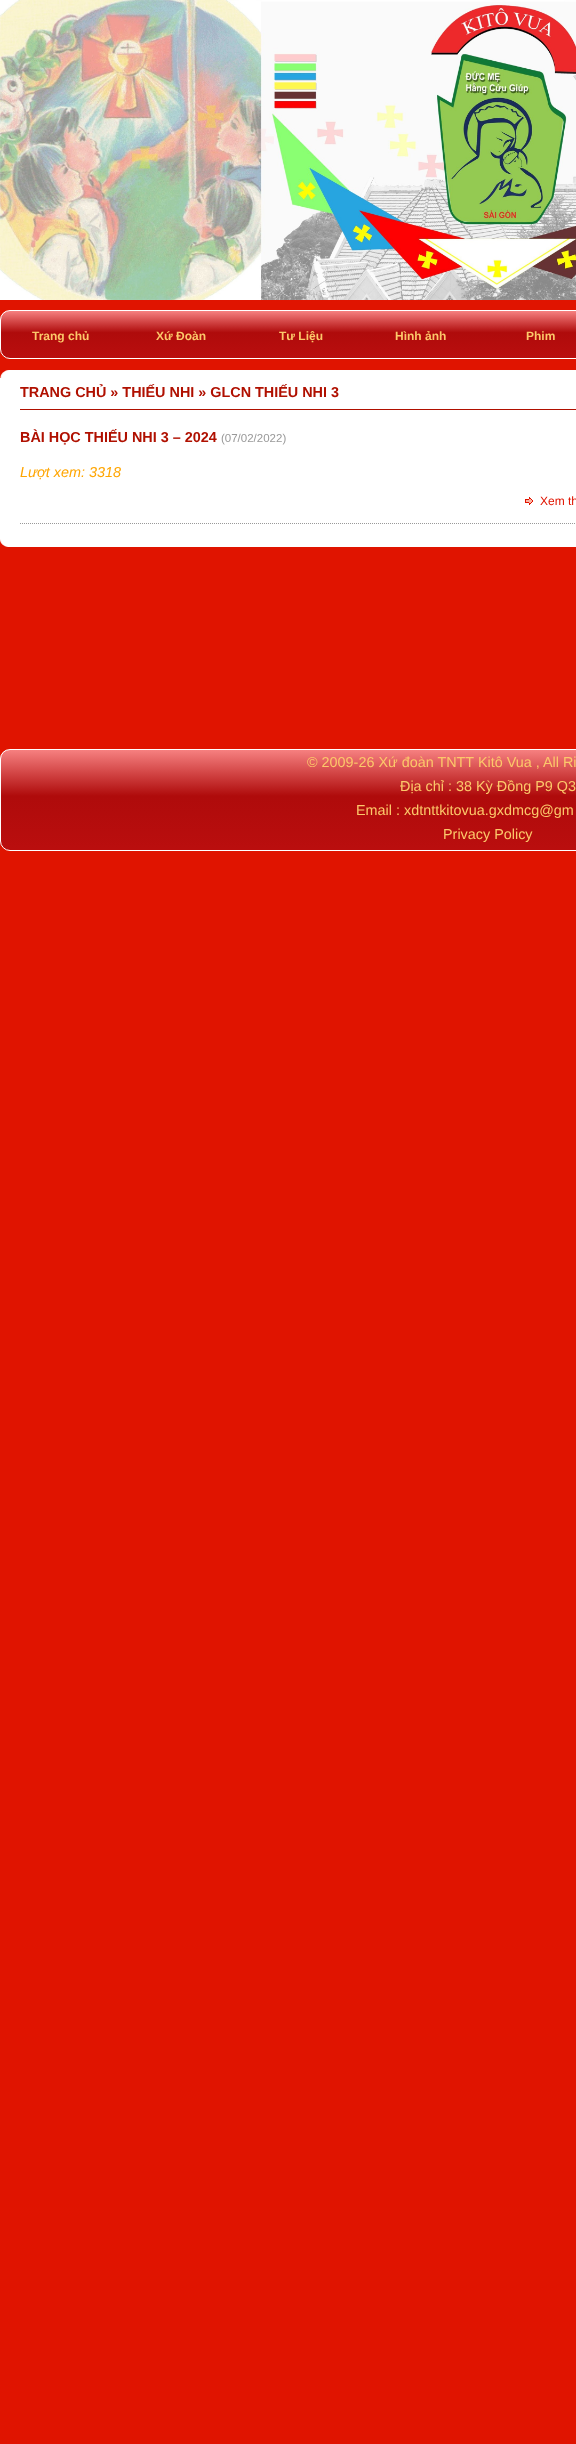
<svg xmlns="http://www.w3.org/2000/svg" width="576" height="2444">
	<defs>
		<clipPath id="clip1"><rect x="0" y="310" width="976" height="49" rx="10" /></clipPath>
		<linearGradient id="g1" gradientUnits="userSpaceOnUse" x1="488" y1="358" x2="488" y2="311"><stop offset="0" stop-color="#BA0E0E" /><stop offset="0.54" stop-color="#AF0B0B" /><stop offset="1" stop-color="#F68080" /></linearGradient>
		<clipPath id="clip2"><rect x="0" y="749" width="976" height="102" rx="10" /></clipPath>
		<linearGradient id="g2" gradientUnits="userSpaceOnUse" x1="488" y1="850" x2="488" y2="750"><stop offset="0" stop-color="#BA0E0E" /><stop offset="0.54" stop-color="#AF0B0B" /><stop offset="1" stop-color="#F68080" /></linearGradient>
	</defs>
	<rect width="100%" height="100%" fill="#E01400" />
	<image x="0" y="0" width="576" height="300" href="assets/img1.png" />
	<g clip-path="url(#clip1)">
		<rect x="0" y="311" width="576" height="47" fill="url(#g1)" />
	</g>
	<rect x="0.5" y="310.5" width="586" height="48" rx="9.5" fill="none" stroke="#FFFFFF" />
	<g font-family="Liberation Sans" font-size="12" font-weight="700" fill="#FCC86A">
		<text x="32" y="340">Trang chủ</text>
		<text x="156" y="340">Xứ Đoàn</text>
		<text x="279" y="340">Tư Liệu</text>
		<text x="395" y="340">Hình ảnh</text>
		<text x="526" y="340">Phim</text>
	</g>
	<rect x="0" y="370" width="576" height="177" fill="#FFFFFF" />
	<image x="0" y="370" width="9" height="8" href="assets/img2.png" />
	<rect x="20" y="409" width="556" height="1" fill="#B01000" />
	<text x="20" y="397" font-family="Liberation Sans" font-size="14.4" font-weight="700" fill="#B01000">TRANG CHỦ » THIẾU NHI » GLCN THIẾU NHI 3</text>
	<path d="M20 523.5H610" fill="none" stroke="#999999" stroke-dasharray="1 1" />
	<text x="20" y="442" font-family="Liberation Sans" font-size="14.4" font-weight="700" fill="#B01000">BÀI HỌC THIẾU NHI 3 – 2024</text>
	<text x="221" y="442" font-family="Liberation Sans" font-size="11.5" fill="#999999">(07/02/2022)</text>
	<text x="20" y="477" font-family="Liberation Sans" font-size="14.4" font-style="italic" fill="#FFA500">Lượt xem: 3318</text>
	<image x="525" y="497" width="8" height="8" href="assets/img3.png" />
	<text x="540" y="505" font-family="Liberation Sans" font-size="12" fill="#E01400">Xem th</text>
	<image x="0" y="539" width="8" height="8" href="assets/img4.png" />
	<g clip-path="url(#clip2)">
		<rect x="0" y="750" width="576" height="100" fill="url(#g2)" />
	</g>
	<rect x="0.5" y="749.5" width="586" height="101" rx="9.5" fill="none" stroke="#FFFFFF" />
	<g font-family="Liberation Sans" font-size="14.4" fill="#FCC86A">
		<text x="307" y="767">© 2009-26 Xứ đoàn TNTT Kitô Vua , All Ri</text>
		<text x="400" y="791">Địa chỉ : 38 Kỳ Đồng P9 Q3</text>
		<text x="356" y="815">Email : xdtnttkitovua.gxdmcg@gm</text>
		<text x="443" y="839">Privacy Policy</text>
	</g>
</svg>
